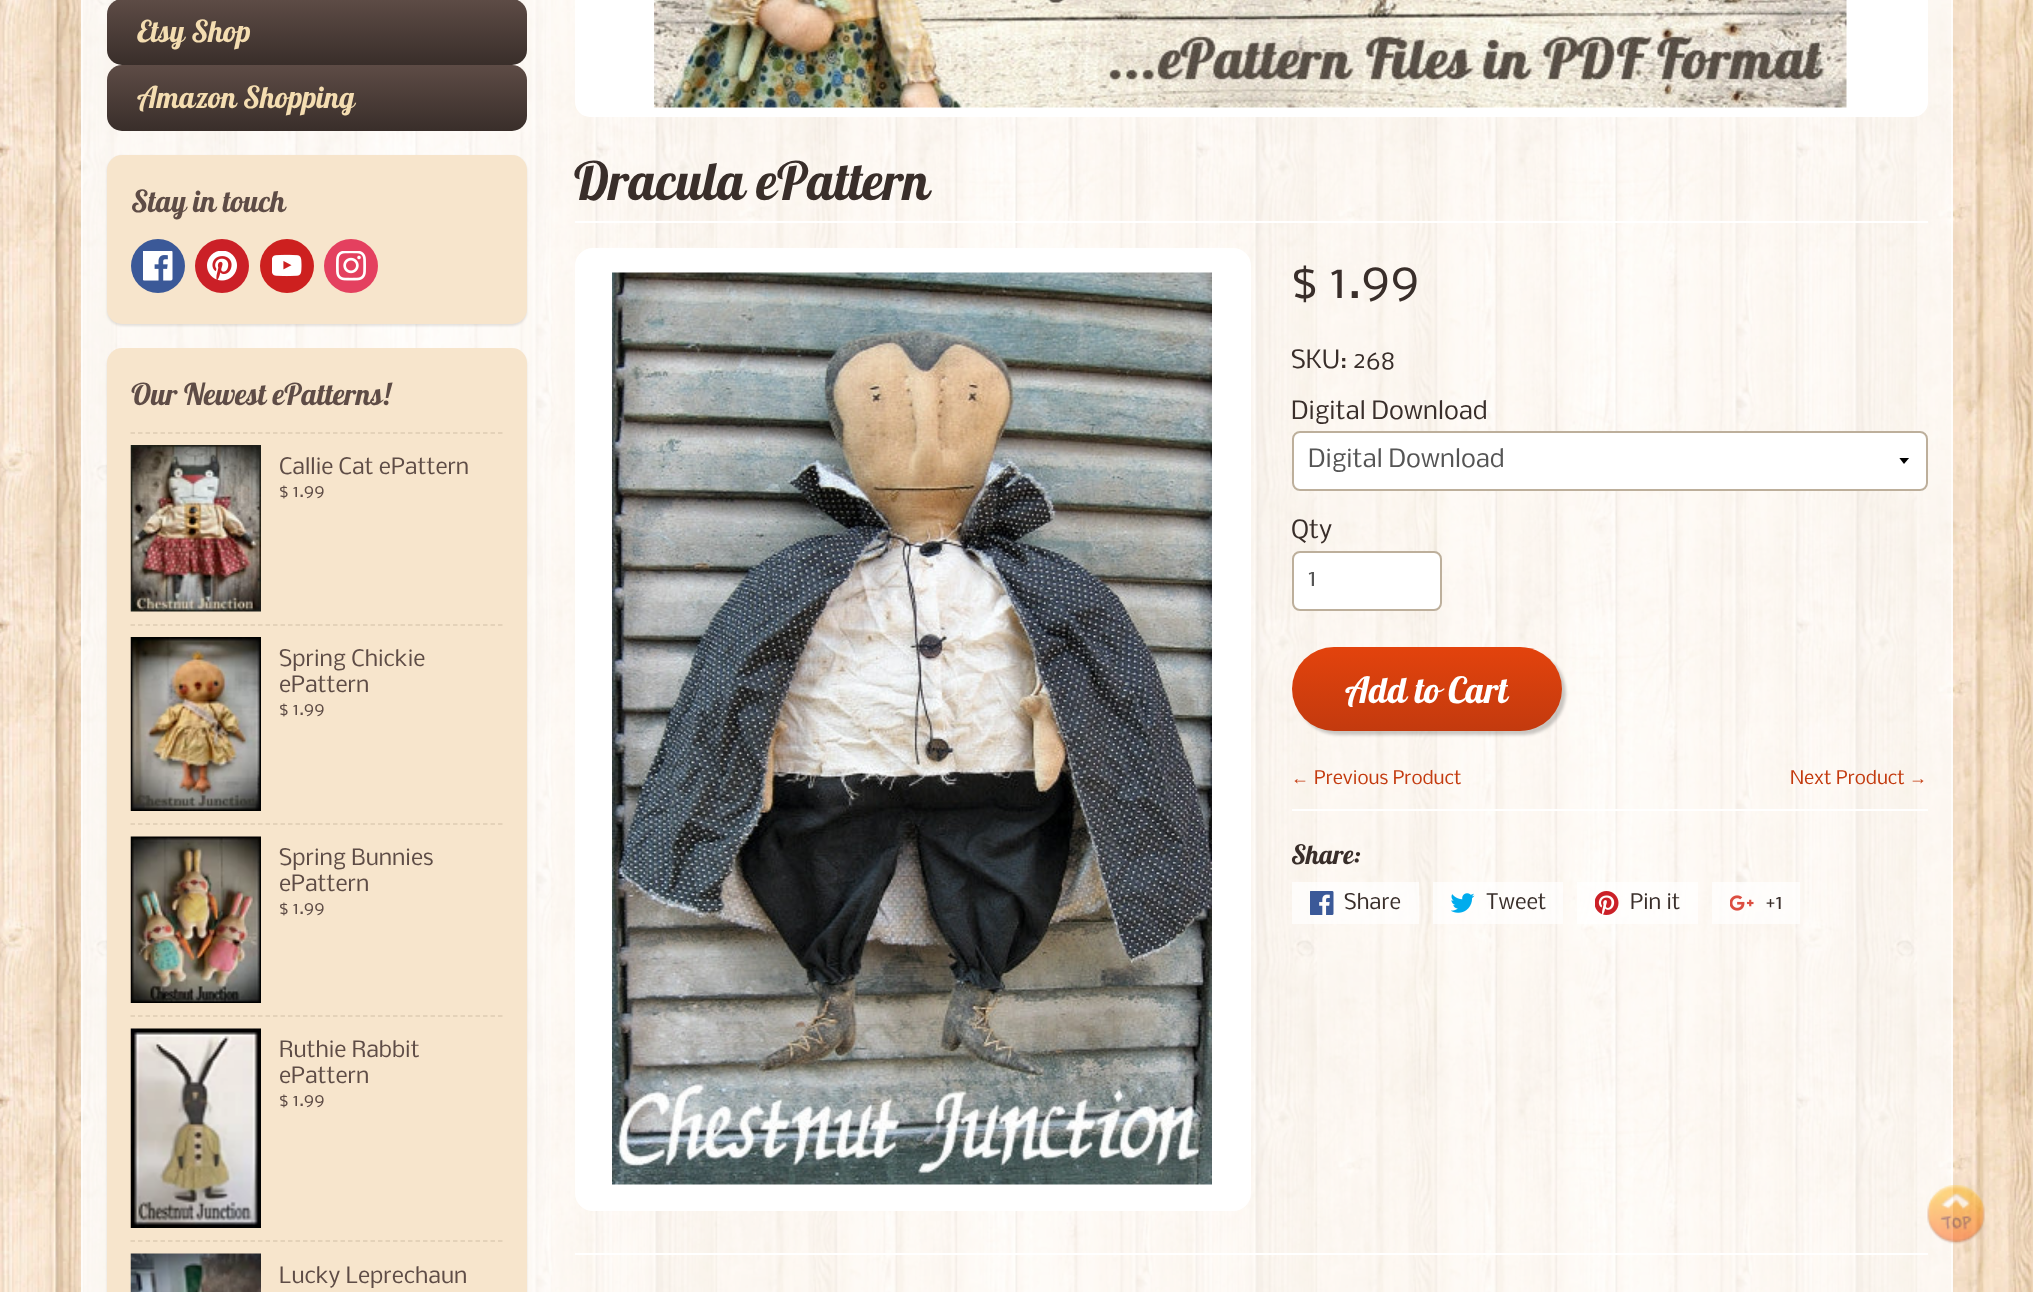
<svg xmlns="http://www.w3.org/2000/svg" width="2033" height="1292">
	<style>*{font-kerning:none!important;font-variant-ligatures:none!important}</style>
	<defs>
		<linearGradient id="g1" gradientUnits="userSpaceOnUse" x1="317" y1="-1.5" x2="317" y2="65"><stop offset="0" stop-color="#5E4C46" /><stop offset="1" stop-color="#392E2A" /></linearGradient>
		<linearGradient id="g2" gradientUnits="userSpaceOnUse" x1="317" y1="64" x2="317" y2="131"><stop offset="0" stop-color="#5E4C46" /><stop offset="1" stop-color="#392E2A" /></linearGradient>
		<clipPath id="clip1"><rect x="1899" y="458" width="12" height="7" /></clipPath>
		<linearGradient id="g3" gradientUnits="userSpaceOnUse" x1="1427" y1="647" x2="1427" y2="731"><stop offset="0" stop-color="#E3430D" /><stop offset="1" stop-color="#C33A0E" /></linearGradient>
	</defs>
	<rect width="100%" height="100%" fill="#FFFFFF" />
	<image x="0" y="0" width="2033" height="1292" href="assets/img1.png" />
	<rect x="82" y="-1" width="1870" height="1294" fill="none" stroke="#FFFFFF" stroke-opacity="0.7" stroke-width="2" />
	<rect x="83" y="0" width="468" height="1292" fill="#FFFFFF" fill-opacity="0.25" />
	<rect x="107" y="-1" width="420" height="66" rx="15" fill="url(#g1)" />
	<text x="137" y="42" font-family="Lobster" font-size="30" fill="#F4DDB1">Etsy Shop</text>
	<rect x="107" y="65" width="420" height="66" rx="15" fill="url(#g2)" />
	<text x="137" y="108" font-family="Lobster" font-size="30" fill="#F4DDB1">Amazon Shopping</text>
	<rect x="107" y="156" width="420" height="170" rx="15" fill="#000000" fill-opacity="0.1" filter="blur(1px)" />
	<rect x="107" y="155" width="420" height="169" rx="15" fill="#F7E5CC" />
	<text x="131" y="212" font-family="Lobster" font-size="30" fill="#5E4C46">Stay in touch</text>
	<circle cx="158" cy="266" r="27" fill="#3B5998" />
	<image x="143" y="251" width="30" height="30" href="assets/img2.png" />
	<circle cx="222" cy="266" r="27" fill="#CB2027" />
	<image x="207" y="251" width="30" height="30" href="assets/img3.png" />
	<circle cx="287" cy="266" r="27" fill="#CD201F" />
	<image x="272" y="254" width="30" height="23" href="assets/img4.png" />
	<circle cx="351" cy="266" r="27" fill="#E4405F" />
	<image x="336" y="251" width="30" height="30" href="assets/img5.png" />
	<rect x="107" y="350" width="420" height="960" rx="15" fill="#000000" fill-opacity="0.1" filter="blur(1px)" />
	<rect x="107" y="348" width="420" height="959" rx="15" fill="#F7E5CC" />
	<text x="131" y="405" font-family="Lobster" font-size="30" fill="#5E4C46">Our Newest ePatterns!</text>
	<path d="M130.5 433H502.5" fill="none" stroke="#DECCB2" stroke-width="1.5" stroke-dasharray="4.5 3" />
	<image x="130" y="445" width="131" height="167" href="assets/img6.png" />
	<text x="279" y="474" font-family="Nobile" font-size="21.5" fill="#5E4C46">Callie Cat ePattern</text>
	<text x="279" y="497" font-family="Nobile" font-size="17" fill="#5E4C46">$ 1.99</text>
	<path d="M130.5 625H502.5" fill="none" stroke="#DECCB2" stroke-width="1.5" stroke-dasharray="4.5 3" />
	<image x="130" y="637" width="131" height="174" href="assets/img7.png" />
	<g font-family="Nobile" font-size="21.5" fill="#5E4C46">
		<text x="279" y="666">Spring Chickie</text>
		<text x="279" y="692">ePattern</text>
	</g>
	<text x="279" y="715" font-family="Nobile" font-size="17" fill="#5E4C46">$ 1.99</text>
	<path d="M130.5 824H502.5" fill="none" stroke="#DECCB2" stroke-width="1.5" stroke-dasharray="4.5 3" />
	<image x="130" y="836" width="131" height="167" href="assets/img8.png" />
	<g font-family="Nobile" font-size="21.5" fill="#5E4C46">
		<text x="279" y="865">Spring Bunnies</text>
		<text x="279" y="891">ePattern</text>
	</g>
	<text x="279" y="914" font-family="Nobile" font-size="17" fill="#5E4C46">$ 1.99</text>
	<path d="M130.5 1016H502.5" fill="none" stroke="#DECCB2" stroke-width="1.5" stroke-dasharray="4.5 3" />
	<image x="130" y="1028" width="131" height="200" href="assets/img9.png" />
	<g font-family="Nobile" font-size="21.5" fill="#5E4C46">
		<text x="279" y="1057">Ruthie Rabbit</text>
		<text x="279" y="1083">ePattern</text>
	</g>
	<text x="279" y="1106" font-family="Nobile" font-size="17" fill="#5E4C46">$ 1.99</text>
	<path d="M130.5 1241H502.5" fill="none" stroke="#DECCB2" stroke-width="1.5" stroke-dasharray="4.5 3" />
	<image x="130" y="1253" width="131" height="39" href="assets/img10.png" />
	<text x="279" y="1283" font-family="Nobile" font-size="21.5" fill="#5E4C46">Lucky Leprechaun</text>
	<rect x="575" y="-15" width="1353" height="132" rx="15" fill="#FFFFFF" />
	<image x="654" y="0" width="1193" height="108" href="assets/img11.png" />
	<rect x="575" y="221" width="1353" height="2" fill="#FFFFFF" />
	<text x="574" y="200" font-family="Lobster" font-size="52.75" fill="#392E2A">Dracula ePattern</text>
	<rect x="576" y="249" width="674" height="961" rx="17" fill="#FFFFFF" stroke="#FFFFFF" stroke-width="2" />
	<image x="612" y="272" width="600" height="913" href="assets/img12.png" />
	<text x="1291" y="298" font-family="Nobile" font-size="48" fill="#392E2A">$ 1.99</text>
	<g font-family="Nobile" font-size="24" fill="#392E2A">
		<text x="1291" y="368">SKU: 268</text>
		<text x="1291" y="419">Digital Download</text>
	</g>
	<rect x="1292" y="431" width="636" height="60" rx="8" fill="#FFFFFF" />
	<g clip-path="url(#clip1)">
		<path d="M1899 457.5L1904 464L1909.5 457.5Z" fill="#000000" />
	</g>
	<rect x="1293" y="432" width="634" height="58" rx="7" fill="none" stroke="#BDAF9B" stroke-width="2" />
	<text x="1308" y="467" font-family="Nobile" font-size="24" fill="#555555">Digital Download</text>
	<text x="1291" y="538" font-family="Nobile" font-size="24" fill="#392E2A">Qty</text>
	<rect x="1293" y="552" width="148" height="58" rx="7" fill="#FFFFFF" stroke="#BDAF9B" stroke-width="2" />
	<text x="1308" y="586" font-family="Nobile" font-size="24" fill="#555555">1</text>
	<rect x="1296" y="651" width="270" height="84" rx="42" fill="#000000" fill-opacity="0.2" filter="blur(1.5px)" />
	<rect x="1292" y="647" width="270" height="84" rx="42" fill="url(#g3)" />
	<text x="1345" y="703" font-family="Lobster" font-size="36" fill="#FFFFFF">Add to Cart</text>
	<text x="1291" y="784" font-family="Liberation Sans" font-size="18" fill="#C33A0E">←</text>
	<g font-family="Nobile" font-size="18" fill="#C33A0E">
		<text x="1314" y="784">Previous Product</text>
		<text x="1790" y="784">Next Product</text>
	</g>
	<text x="1909" y="784" font-family="Liberation Sans" font-size="18" fill="#C33A0E">→</text>
	<rect x="1292" y="809" width="636" height="2" fill="#FFFFFF" />
	<text x="1291" y="864" font-family="Lobster" font-size="26.5" fill="#392E2A">Share:</text>
	<rect x="1292" y="882" width="127" height="42" fill="#FFFFFF" fill-opacity="0.7" />
	<image x="1310" y="891" width="24" height="24" href="assets/img13.png" />
	<text x="1344" y="909" font-family="Nobile" font-size="20.5" fill="#392E2A">Share</text>
	<rect x="1433" y="882" width="130" height="42" fill="#FFFFFF" fill-opacity="0.7" />
	<image x="1451" y="893" width="24" height="20" href="assets/img14.png" />
	<text x="1486" y="909" font-family="Nobile" font-size="20.5" fill="#392E2A">Tweet</text>
	<rect x="1577" y="882" width="121" height="42" fill="#FFFFFF" fill-opacity="0.7" />
	<image x="1595" y="891" width="24" height="24" href="assets/img15.png" />
	<text x="1630" y="909" font-family="Nobile" font-size="20.5" fill="#392E2A">Pin it</text>
	<rect x="1712" y="882" width="88" height="42" fill="#FFFFFF" fill-opacity="0.7" />
	<image x="1730" y="895" width="24" height="16" href="assets/img16.png" />
	<text x="1765" y="909" font-family="Nobile" font-size="20.5" fill="#392E2A">+1</text>
	<rect x="575" y="1253" width="1353" height="2" fill="#FFFFFF" />
	<image x="1927" y="1185" width="58" height="59" href="assets/img17.png" />
</svg>
